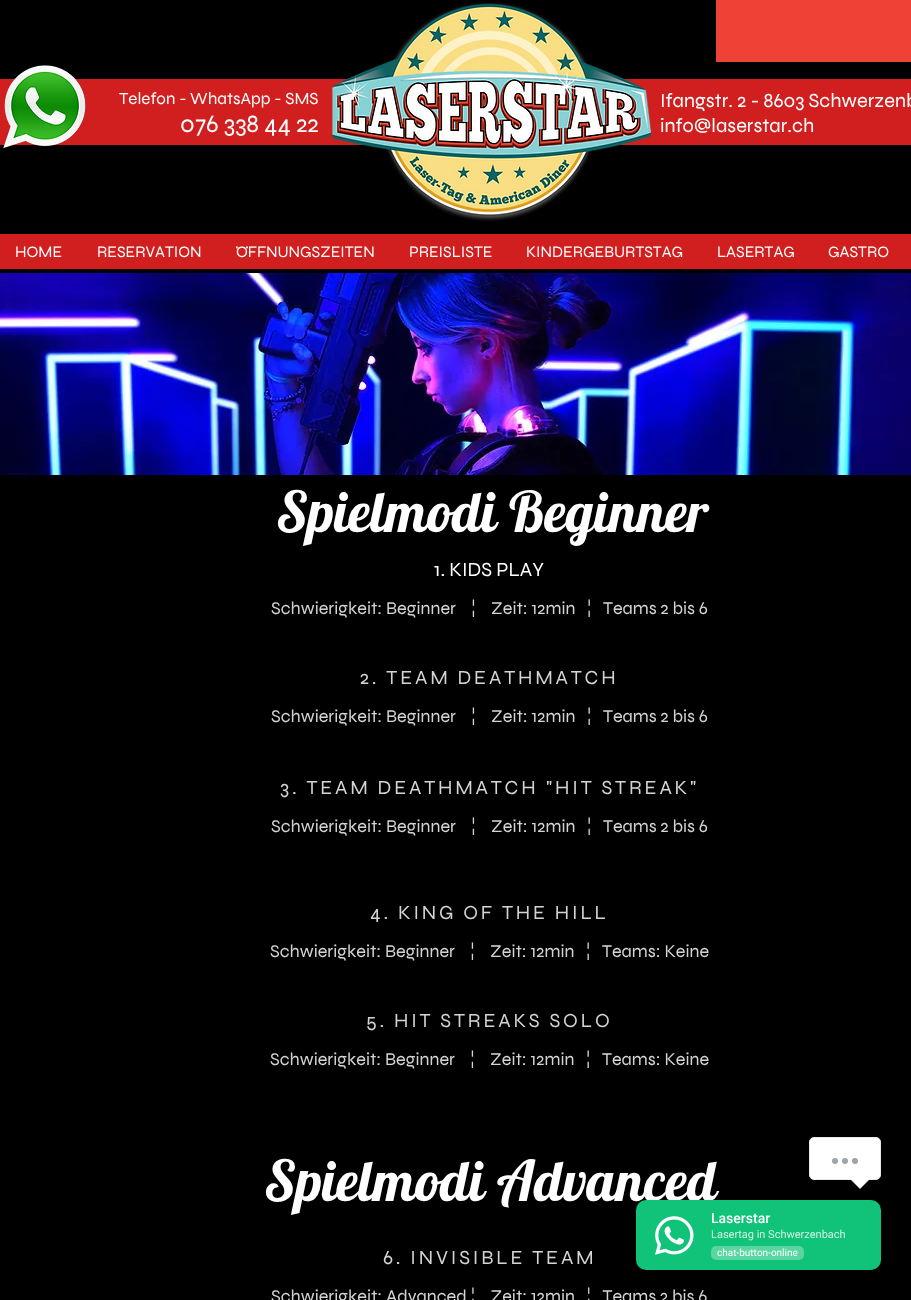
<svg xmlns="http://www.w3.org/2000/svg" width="911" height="1300">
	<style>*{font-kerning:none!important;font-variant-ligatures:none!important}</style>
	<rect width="100%" height="100%" fill="#000000" />
	<rect x="0" y="79" width="911" height="66" fill="#D11F1F" />
	<image x="3" y="65" width="83" height="84" href="assets/img1.png" />
	<image x="332" y="2" width="319" height="219" href="assets/img2.png" />
	<rect x="716" y="0" width="195" height="62" fill="#EF4135" />
	<text x="119" y="104" font-family="Syne" font-size="17" fill="#FFFFFF">Telefon - WhatsApp - SMS</text>
	<text x="180" y="132" font-family="Syne" font-size="25" fill="#FFFFFF">076 338 44 22</text>
	<g font-family="Syne" font-size="20" fill="#FFFFFF">
		<text x="660" y="107">Ifangstr. 2 - 8603 Schwerzenb</text>
		<text x="660" y="132">info@laserstar.ch</text>
	</g>
	<rect x="0" y="234" width="911" height="35" fill="#D11F1F" />
	<g font-family="Syne" font-size="16" fill="#FFFFFF">
		<text x="15" y="257">HOME</text>
		<text x="97" y="257">RESERVATION</text>
		<text x="236" y="257">ÖFFNUNGSZEITEN</text>
		<text x="409" y="257">PREISLISTE</text>
		<text x="526" y="257">KINDERGEBURTSTAG</text>
		<text x="717" y="257">LASERTAG</text>
		<text x="828" y="257">GASTRO</text>
	</g>
	<image x="0" y="273" width="911" height="202" href="assets/img3.png" />
	<text x="276" y="532" font-family="Lobster" font-size="56" fill="#FFFFFF">Spielmodi Beginner</text>
	<text x="434" y="576" font-family="Syne" font-size="20" fill="#FFFFFF">1. KIDS PLAY</text>
	<text x="271" y="614" font-family="Syne" font-size="18" fill="#D4D4D4" xml:space="preserve">Schwierigkeit: Beginner    ¦    Zeit: 12min   ¦   Teams 2 bis 6</text>
	<text x="360" y="684" font-family="Syne" font-size="20" letter-spacing="2.8" fill="#D4D4D4">2. TEAM DEATHMATCH</text>
	<text x="271" y="722" font-family="Syne" font-size="18" fill="#D4D4D4" xml:space="preserve">Schwierigkeit: Beginner    ¦    Zeit: 12min   ¦   Teams 2 bis 6</text>
	<text x="280" y="794" font-family="Syne" font-size="20" letter-spacing="2.8" fill="#D4D4D4">3. TEAM DEATHMATCH</text>
	<text x="546" y="794" font-family="Syne" font-size="20" letter-spacing="2.8" fill="#D4D4D4">"HIT STREAK"</text>
	<text x="271" y="832" font-family="Syne" font-size="18" fill="#D4D4D4" xml:space="preserve">Schwierigkeit: Beginner    ¦    Zeit: 12min   ¦   Teams 2 bis 6</text>
	<text x="370" y="919" font-family="Syne" font-size="20" letter-spacing="2.8" fill="#D4D4D4">4. KING OF THE HILL</text>
	<text x="270" y="957" font-family="Syne" font-size="18" fill="#D4D4D4" xml:space="preserve">Schwierigkeit: Beginner    ¦    Zeit: 12min   ¦   Teams: Keine</text>
	<text x="366" y="1027" font-family="Syne" font-size="20" letter-spacing="2.8" fill="#D4D4D4">5. HIT STREAKS SOLO</text>
	<text x="270" y="1065" font-family="Syne" font-size="18" fill="#D4D4D4" xml:space="preserve">Schwierigkeit: Beginner    ¦    Zeit: 12min   ¦   Teams: Keine</text>
	<text x="383" y="1264" font-family="Syne" font-size="20" letter-spacing="2.8" fill="#D4D4D4">6. INVISIBLE TEAM</text>
	<text x="271" y="1302" font-family="Syne" font-size="18" fill="#D4D4D4" xml:space="preserve">Schwierigkeit: Advanced ¦    Zeit: 12min   ¦   Teams 2 bis 6</text>
	<text x="264" y="1201" font-family="Lobster" font-size="56" fill="#FFFFFF">Spielmodi Advanced</text>
	<rect x="809.5" y="1137.5" width="71" height="42" rx="4.5" fill="#FFFFFF" stroke="#E9E9E9" />
	<circle cx="835" cy="1161" r="3" fill="#9FA4A8" />
	<circle cx="845" cy="1161" r="3" fill="#9FA4A8" />
	<circle cx="855" cy="1161" r="3" fill="#9FA4A8" />
	<path d="M850 1179H870L860 1189Z" fill="#E9E9E9" />
	<path d="M851 1179H869L860 1188Z" fill="#FFFFFF" />
	<rect x="636" y="1201" width="245" height="70" rx="10" fill="#000000" fill-opacity="0.15" filter="blur(1px)" />
	<rect x="636" y="1200" width="245" height="70" rx="10" fill="#10C379" />
	<image x="655" y="1216" width="39" height="39" href="assets/img4.png" />
	<text x="711" y="1223" font-family="Roboto" font-size="14" font-weight="500" fill="#FFFFFF">Laserstar</text>
	<text x="711" y="1238" font-family="Roboto" font-size="11" fill="#CFF3E4">Lasertag in Schwerzenbach</text>
	<rect x="711" y="1246" width="93" height="14" rx="5" fill="#58D5A1" />
	<text x="717" y="1256" font-family="Roboto" font-size="10" fill="#FFFFFF">chat-button-online</text>
</svg>
